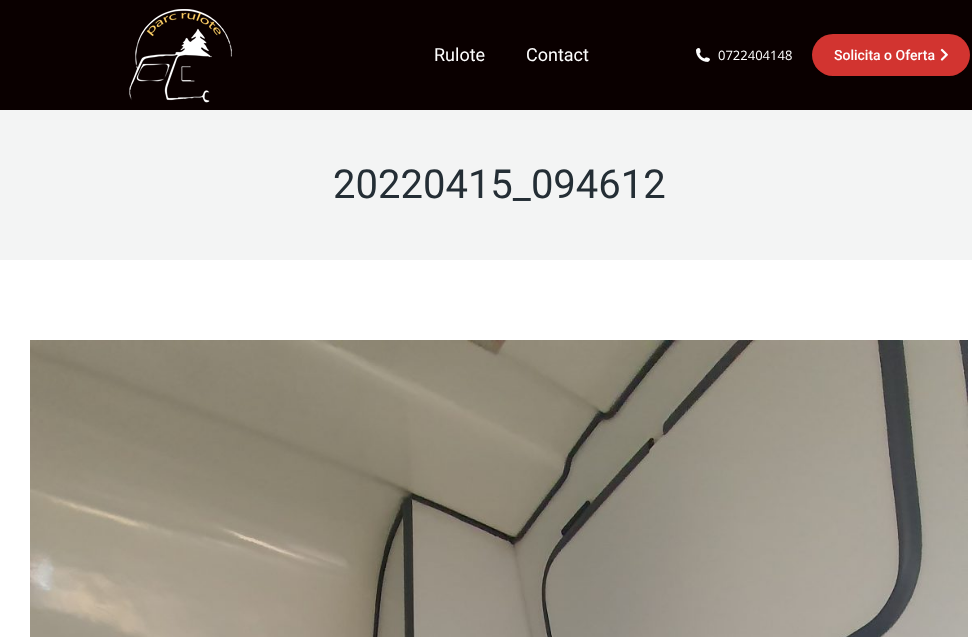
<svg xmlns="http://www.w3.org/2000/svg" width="972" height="637">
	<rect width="100%" height="100%" fill="#FFFFFF" />
	<rect x="0" y="0" width="972" height="110" fill="#0A0000" />
	<image x="129" y="9" width="103" height="94" href="assets/img1.png" />
	<g font-family="Roboto" font-size="18" fill="#FFFFFF">
		<text x="434" y="61">Rulote</text>
		<text x="526" y="61">Contact</text>
	</g>
	<image x="696" y="48" width="14" height="14" href="assets/img2.png" />
	<text x="718" y="60" font-family="Open Sans" font-size="13" fill="#FFFFFF">0722404148</text>
	<rect x="812" y="34" width="158" height="42" rx="21" fill="#D23430" />
	<text x="834" y="60" font-family="Roboto" font-size="14" font-weight="500" fill="#FFFFFF">Solicita o Oferta</text>
	<image x="940" y="48" width="8" height="13" href="assets/img3.png" />
	<rect x="0" y="110" width="972" height="150" fill="#F3F4F4" />
	<text x="333" y="198" font-family="Roboto" font-size="40" fill="#242E35">20220415_094612</text>
	<image x="30" y="340" width="938" height="297" href="assets/img4.png" />
</svg>
